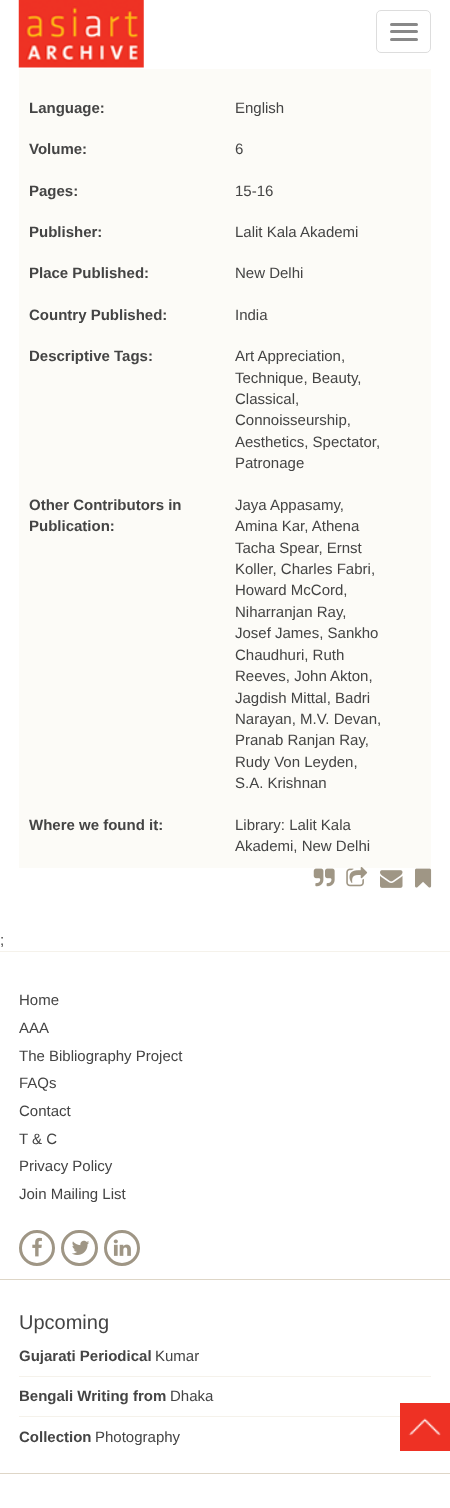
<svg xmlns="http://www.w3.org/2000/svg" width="450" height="1508">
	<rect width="100%" height="100%" fill="#FFFFFF" />
	<image x="18" y="0" width="126" height="68" href="assets/img1.png" />
	<rect x="376.5" y="10.5" width="54" height="42" rx="4.5" fill="none" stroke="#DDDDDD" />
	<rect x="390" y="23" width="28" height="3" rx="1.5" fill="#888888" />
	<rect x="390" y="30" width="28" height="3" rx="1.5" fill="#888888" />
	<rect x="390" y="38" width="28" height="3" rx="1.5" fill="#888888" />
	<rect x="19" y="69" width="412" height="799" fill="#FCFBF7" />
	<text x="29" y="113" font-family="Liberation Sans" font-size="15" font-weight="700" fill="#444444">Language:</text>
	<text x="235" y="113" font-family="Liberation Sans" font-size="15" fill="#444444">English</text>
	<text x="29" y="154" font-family="Liberation Sans" font-size="15" font-weight="700" fill="#444444">Volume:</text>
	<text x="235" y="154" font-family="Liberation Sans" font-size="15" fill="#444444">6</text>
	<text x="29" y="196" font-family="Liberation Sans" font-size="15" font-weight="700" fill="#444444">Pages:</text>
	<text x="235" y="196" font-family="Liberation Sans" font-size="15" fill="#444444">15-16</text>
	<text x="29" y="237" font-family="Liberation Sans" font-size="15" font-weight="700" fill="#444444">Publisher:</text>
	<text x="235" y="237" font-family="Liberation Sans" font-size="15" fill="#444444">Lalit Kala Akademi</text>
	<text x="29" y="278" font-family="Liberation Sans" font-size="15" font-weight="700" fill="#444444">Place Published:</text>
	<text x="235" y="278" font-family="Liberation Sans" font-size="15" fill="#444444">New Delhi</text>
	<text x="29" y="320" font-family="Liberation Sans" font-size="15" font-weight="700" fill="#444444">Country Published:</text>
	<text x="235" y="320" font-family="Liberation Sans" font-size="15" fill="#444444">India</text>
	<text x="29" y="361" font-family="Liberation Sans" font-size="15" font-weight="700" fill="#444444">Descriptive Tags:</text>
	<g font-family="Liberation Sans" font-size="15" fill="#444444">
		<text x="235" y="361">Art Appreciation,</text>
		<text x="235" y="383">Technique, Beauty,</text>
		<text x="235" y="404">Classical,</text>
		<text x="235" y="425">Connoisseurship,</text>
		<text x="235" y="447">Aesthetics, Spectator,</text>
		<text x="235" y="468">Patronage</text>
	</g>
	<g font-family="Liberation Sans" font-size="15" font-weight="700" fill="#444444">
		<text x="29" y="510">Other Contributors in</text>
		<text x="29" y="531">Publication:</text>
	</g>
	<g font-family="Liberation Sans" font-size="15" fill="#444444">
		<text x="235" y="510">Jaya Appasamy,</text>
		<text x="235" y="531">Amina Kar, Athena</text>
		<text x="235" y="553">Tacha Spear, Ernst</text>
		<text x="235" y="574">Koller, Charles Fabri,</text>
		<text x="235" y="595">Howard McCord,</text>
		<text x="235" y="617">Niharranjan Ray,</text>
		<text x="235" y="638">Josef James, Sankho</text>
		<text x="235" y="660">Chaudhuri, Ruth</text>
		<text x="235" y="681">Reeves, John Akton,</text>
		<text x="235" y="703">Jagdish Mittal, Badri</text>
		<text x="235" y="724">Narayan, M.V. Devan,</text>
		<text x="235" y="745">Pranab Ranjan Ray,</text>
		<text x="235" y="767">Rudy Von Leyden,</text>
		<text x="235" y="788">S.A. Krishnan</text>
	</g>
	<text x="29" y="830" font-family="Liberation Sans" font-size="15" font-weight="700" fill="#444444">Where we found it:</text>
	<g font-family="Liberation Sans" font-size="15" fill="#444444">
		<text x="235" y="830">Library: Lalit Kala</text>
		<text x="235" y="851">Akademi, New Delhi</text>
	</g>
	<image x="313" y="868" width="22" height="19" href="assets/img2.png" />
	<image x="346" y="867" width="22" height="20" href="assets/img3.png" />
	<image x="380" y="870" width="23" height="18" href="assets/img4.png" />
	<image x="415" y="868" width="17" height="20" href="assets/img5.png" />
	<text x="0" y="945" font-family="Liberation Sans" font-size="15" fill="#444444">;</text>
	<rect x="0" y="951" width="450" height="1" fill="#F5F2EB" />
	<rect x="0" y="1279" width="450" height="1" fill="#DED6C7" />
	<g font-family="Liberation Sans" font-size="15" fill="#444444">
		<text x="19" y="1005">Home</text>
		<text x="19" y="1033">AAA</text>
		<text x="19" y="1061">The Bibliography Project</text>
		<text x="19" y="1088">FAQs</text>
		<text x="19" y="1116">Contact</text>
		<text x="19" y="1144">T &amp; C</text>
		<text x="19" y="1171">Privacy Policy</text>
		<text x="19" y="1199">Join Mailing List</text>
	</g>
	<circle cx="37" cy="1248" r="16.5" fill="none" stroke="#9F9685" stroke-width="3" />
	<image x="32" y="1237" width="10" height="20" href="assets/img6.png" />
	<rect x="62.5" y="1231.5" width="34" height="33" rx="16.5" fill="none" stroke="#9F9685" stroke-width="3" />
	<image x="72" y="1240" width="18" height="15" href="assets/img7.png" />
	<circle cx="122" cy="1248" r="16.5" fill="none" stroke="#9F9685" stroke-width="3" />
	<image x="113" y="1239" width="18" height="17" href="assets/img8.png" />
	<rect x="0" y="1473" width="450" height="1" fill="#DED6C7" />
	<text x="19" y="1329" font-family="Liberation Sans" font-size="20" fill="#444444">Upcoming</text>
	<rect x="19" y="1376" width="412" height="1" fill="#F5F2EB" />
	<text x="19" y="1361" font-family="Liberation Sans" font-size="15" font-weight="700" fill="#444444">Gujarati Periodical</text>
	<text x="155" y="1361" font-family="Liberation Sans" font-size="15" fill="#444444">Kumar</text>
	<rect x="19" y="1416" width="381" height="1" fill="#F5F2EB" />
	<text x="19" y="1401" font-family="Liberation Sans" font-size="15" font-weight="700" fill="#444444">Bengali Writing from</text>
	<text x="170" y="1401" font-family="Liberation Sans" font-size="15" fill="#444444">Dhaka</text>
	<text x="19" y="1442" font-family="Liberation Sans" font-size="15" font-weight="700" fill="#444444">Collection</text>
	<text x="95" y="1442" font-family="Liberation Sans" font-size="15" fill="#444444">Photography</text>
	<rect x="400" y="1403" width="50" height="48" fill="#EE3124" />
	<image x="408" y="1418" width="33" height="18" href="assets/img9.png" />
</svg>
